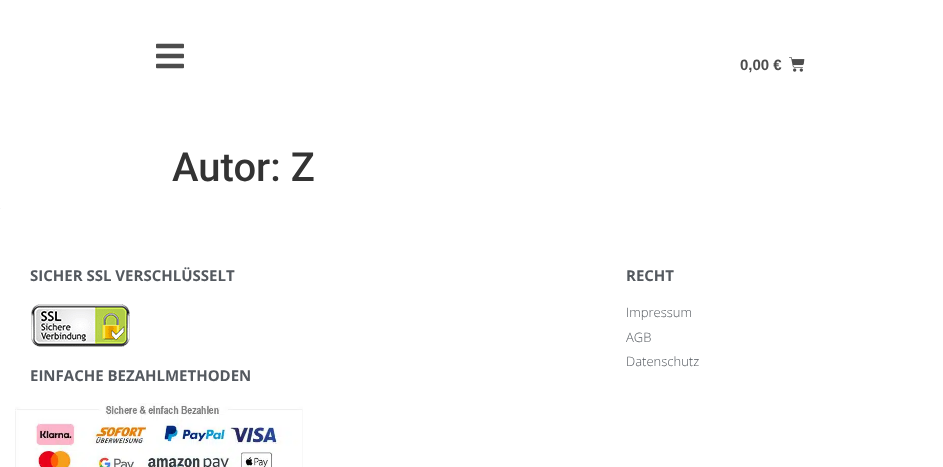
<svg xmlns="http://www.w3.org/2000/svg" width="943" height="467">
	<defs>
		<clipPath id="clip1"><path d="M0 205H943V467H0ZM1 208H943V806H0V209C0 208.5 .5 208 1 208Z" clip-rule="evenodd" /></clipPath>
		<linearGradient id="g1" gradientUnits="userSpaceOnUse" x1="471" y1="208" x2="472" y2="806"><stop offset="0" stop-color="#FFFFFF" stop-opacity="0.83" /><stop offset="1" stop-color="#FFFFFF" /></linearGradient>
	</defs>
	<rect width="100%" height="100%" fill="#FFFFFF" />
	<image x="156" y="43" width="28" height="26" href="assets/img1.png" />
	<text x="740" y="70" font-family="Liberation Sans" font-size="15" font-weight="700" fill="#4D4D4D">0,00 €</text>
	<image x="789" y="57" width="16" height="15" href="assets/img2.png" />
	<text x="172" y="181" font-family="Roboto" font-size="40" font-weight="500" fill="#333333">Autor: Z</text>
	<g clip-path="url(#clip1)">
		<rect x="0" y="208" width="943" height="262" rx="1" fill="#000000" fill-opacity="0.5" filter="blur(0.5px)" />
	</g>
	<path d="M1 208H943V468H0V209C0 208.5 .5 208 1 208Z" fill="url(#g1)" />
	<text x="30" y="281" font-family="Open Sans" font-size="15" font-weight="700" fill="#54595F">SICHER SSL VERSCHLÜSSELT</text>
	<image x="31" y="304" width="99" height="43" href="assets/img3.png" />
	<text x="30" y="381" font-family="Open Sans" font-size="15" font-weight="700" fill="#54595F">EINFACHE BEZAHLMETHODEN</text>
	<image x="15" y="403" width="288" height="64" href="assets/img4.png" />
	<text x="626" y="281" font-family="Open Sans" font-size="15" font-weight="700" fill="#54595F">RECHT</text>
	<g font-family="Open Sans" font-size="13" font-weight="300" fill="#54595F">
		<text x="626" y="317">Impressum</text>
		<text x="626" y="342">AGB</text>
		<text x="626" y="366">Datenschutz</text>
	</g>
</svg>
